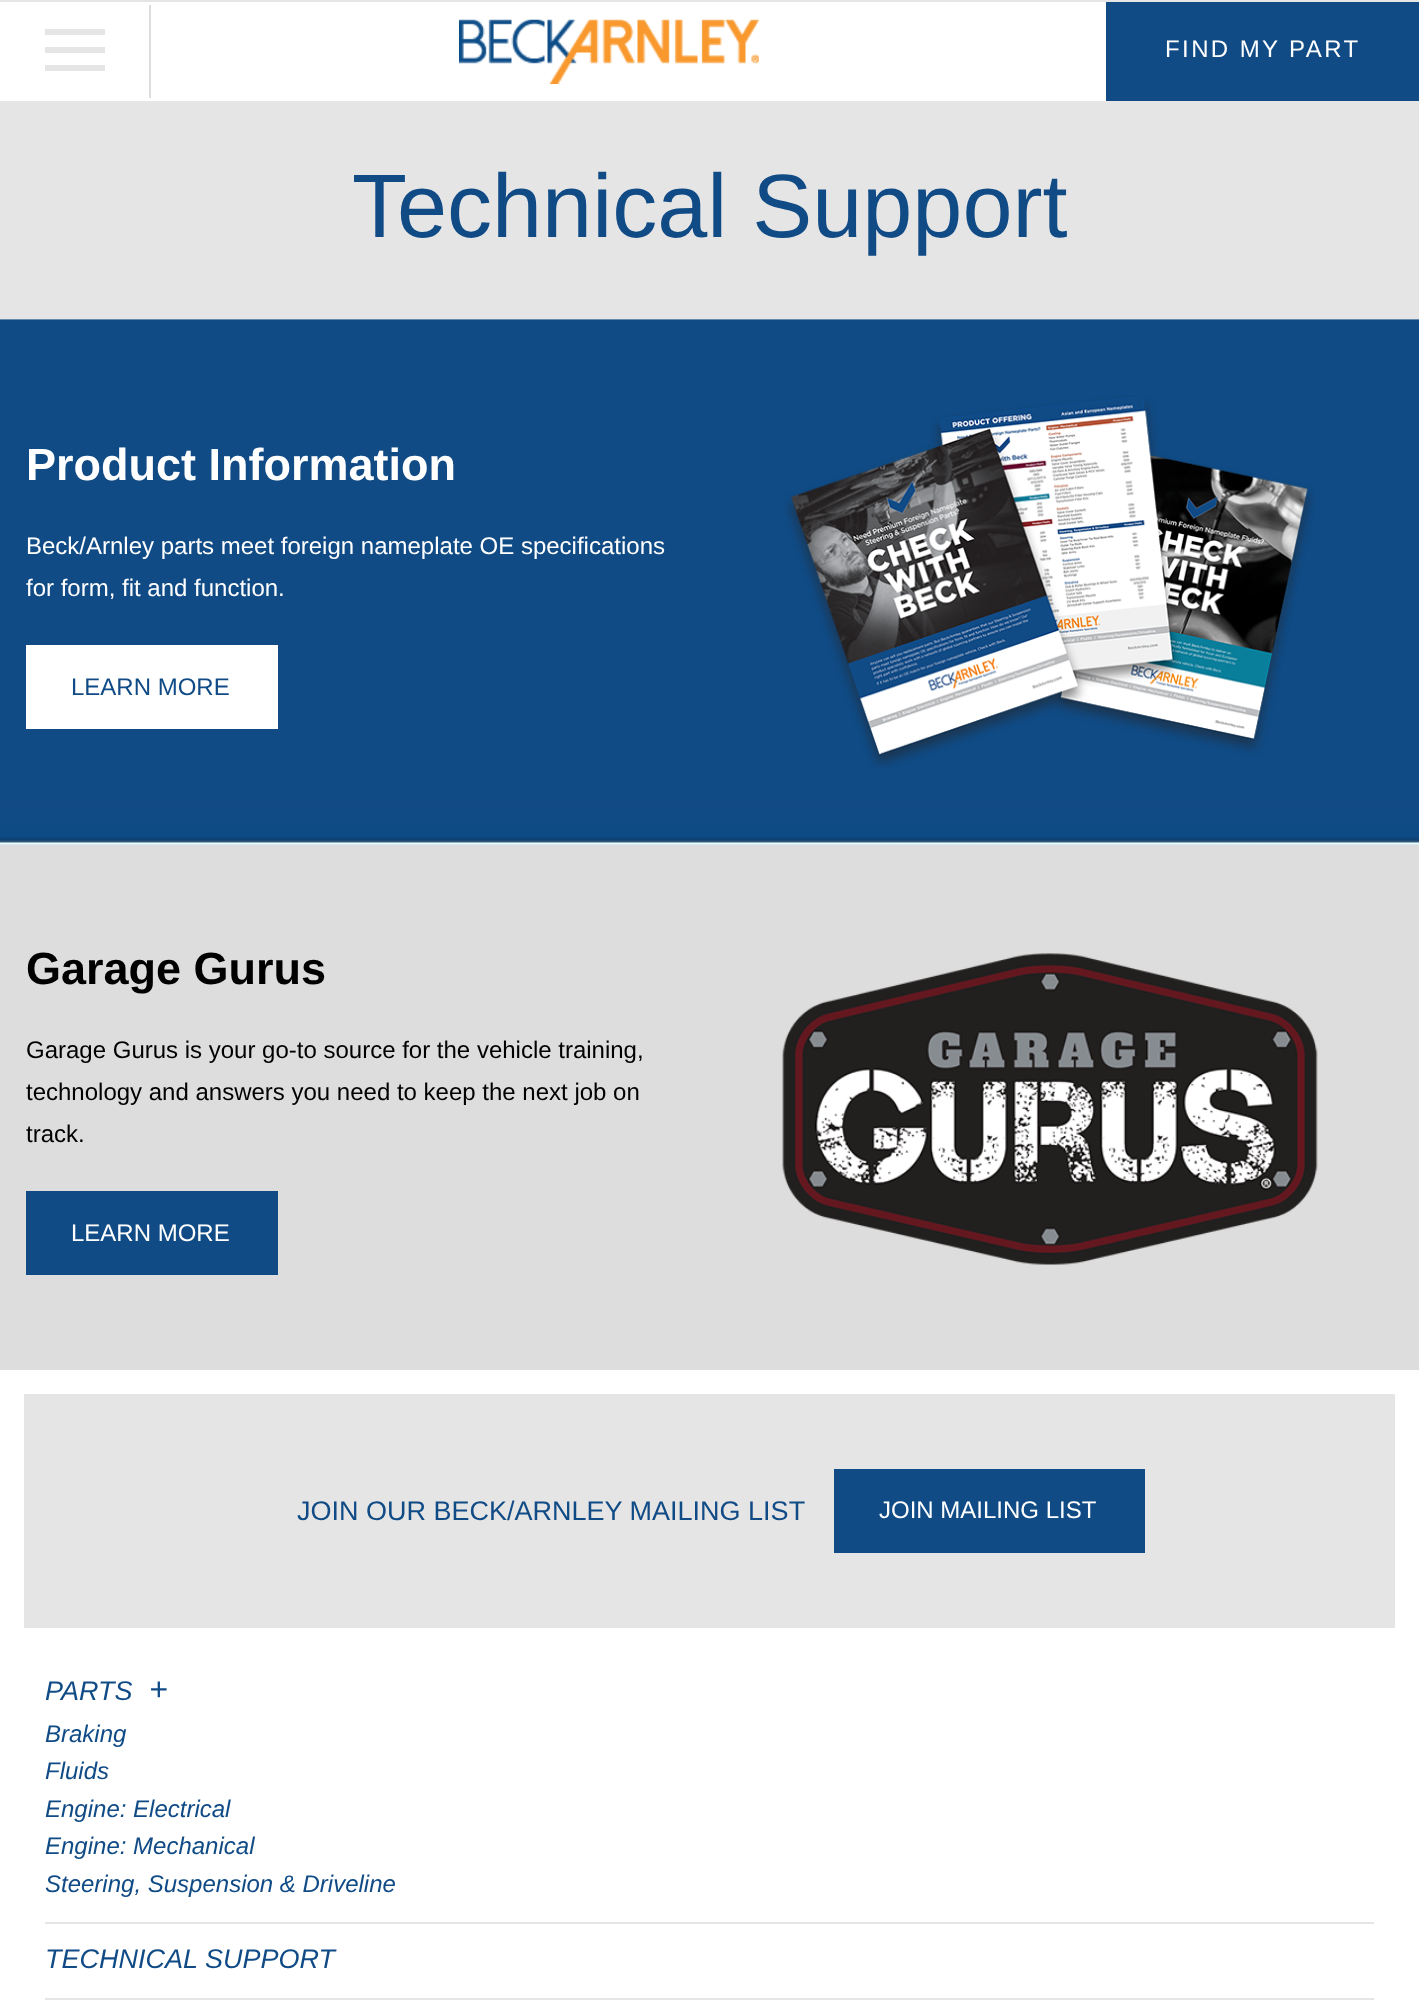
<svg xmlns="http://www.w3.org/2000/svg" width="1419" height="2014">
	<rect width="100%" height="100%" fill="#FFFFFF" />
	<rect x="0" y="0" width="1419" height="2" fill="#E5E5E5" />
	<rect x="149" y="5" width="2" height="93" fill="#DDDDDD" />
	<path d="M45 47H105V53H45ZM45 65H105V71H45ZM45 29H105V35H45Z" fill="#E5E5E5" />
	<image x="459" y="19" width="300" height="65" href="assets/img1.png" />
	<rect x="1106" y="2" width="313" height="99" fill="#104B86" />
	<text x="1165" y="57" font-family="Liberation Sans" font-size="24" letter-spacing="2.4" fill="#FFFFFF">FIND MY PART</text>
	<rect x="0" y="101" width="1419" height="219" fill="#E5E5E5" />
	<text x="352" y="237" font-family="Liberation Sans" font-size="90" fill="#104B86">Technical Support</text>
	<image x="0" y="319" width="1419" height="526" href="assets/img2.png" />
	<image x="0" y="319" width="1419" height="526" href="assets/img3.png" />
	<text x="26" y="480" font-family="Liberation Sans" font-size="45" font-weight="700" fill="#FFFFFF">Product Information</text>
	<g font-family="Liberation Sans" font-size="24" fill="#FFFFFF">
		<text x="26" y="554">Beck/Arnley parts meet foreign nameplate OE specifications</text>
		<text x="26" y="596">for form, fit and function.</text>
	</g>
	<rect x="26" y="645" width="252" height="84" fill="#FFFFFF" />
	<text x="71" y="695" font-family="Liberation Sans" font-size="24" fill="#104B86">LEARN MORE</text>
	<image x="785" y="395" width="529" height="373" href="assets/img4.png" />
	<rect x="0" y="845" width="1419" height="525" fill="#DDDDDD" />
	<text x="26" y="984" font-family="Liberation Sans" font-size="45" font-weight="700" fill="#000000">Garage Gurus</text>
	<g font-family="Liberation Sans" font-size="24" fill="#000000">
		<text x="26" y="1058">Garage Gurus is your go-to source for the vehicle training,</text>
		<text x="26" y="1100">technology and answers you need to keep the next job on</text>
		<text x="26" y="1142">track.</text>
	</g>
	<rect x="26" y="1191" width="252" height="84" fill="#104B86" />
	<text x="71" y="1241" font-family="Liberation Sans" font-size="24" fill="#FFFFFF">LEARN MORE</text>
	<image x="782" y="953" width="536" height="312" href="assets/img5.png" />
	<rect x="24" y="1394" width="1371" height="234" fill="#E5E5E5" />
	<text x="297" y="1520" font-family="Liberation Sans" font-size="27" fill="#104B86">JOIN OUR BECK/ARNLEY MAILING LIST</text>
	<rect x="834" y="1469" width="311" height="84" fill="#104B86" />
	<text x="879" y="1518" font-family="Liberation Sans" font-size="24" fill="#FFFFFF">JOIN MAILING LIST</text>
	<rect x="45" y="1922" width="1329" height="2" fill="#E5E5E5" />
	<text x="45" y="1700" font-family="Liberation Sans" font-size="27" font-style="italic" fill="#104B86">PARTS</text>
	<text x="149" y="1700" font-family="Liberation Sans" font-size="32" font-style="italic" fill="#104B86">+</text>
	<g font-family="Liberation Sans" font-size="24" font-style="italic" fill="#104B86">
		<text x="45" y="1742">Braking</text>
		<text x="45" y="1779">Fluids</text>
		<text x="45" y="1817">Engine: Electrical</text>
		<text x="45" y="1854">Engine: Mechanical</text>
		<text x="45" y="1892">Steering, Suspension &amp; Driveline</text>
	</g>
	<rect x="45" y="1998" width="1329" height="2" fill="#E5E5E5" />
	<text x="45" y="1968" font-family="Liberation Sans" font-size="27" font-style="italic" fill="#104B86">TECHNICAL SUPPORT</text>
</svg>
